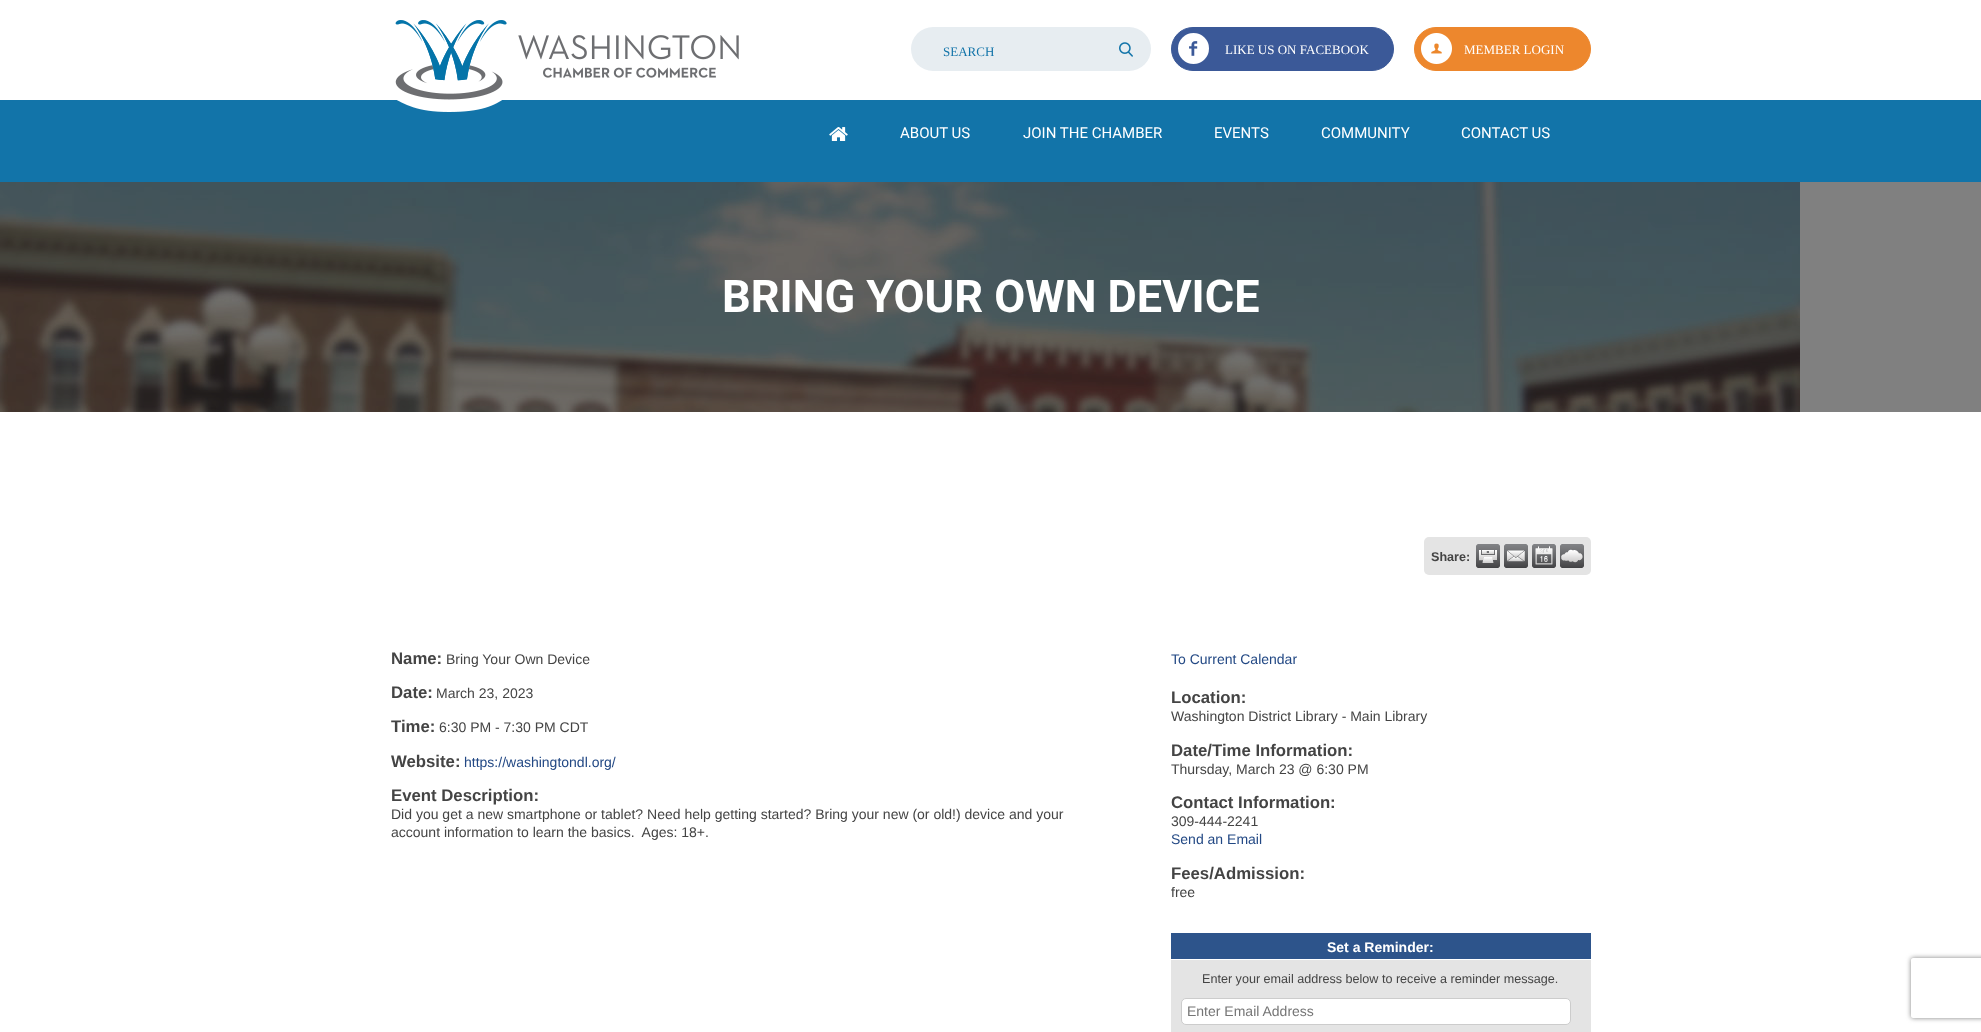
<svg xmlns="http://www.w3.org/2000/svg" width="1981" height="1032">
	<defs>
		<clipPath id="clip1"><path d="M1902 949H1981V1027H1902ZM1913 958H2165C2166 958 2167 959 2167 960V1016C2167 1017 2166 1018 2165 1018H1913C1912 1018 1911 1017 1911 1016V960C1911 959 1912 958 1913 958Z" clip-rule="evenodd" /></clipPath>
	</defs>
	<rect width="100%" height="100%" fill="#FFFFFF" />
	<rect x="1800" y="182" width="181" height="230" fill="#808080" />
	<rect x="0" y="100" width="1981" height="82" fill="#1274A9" />
	<image x="395" y="20" width="344" height="92" href="assets/img1.png" />
	<rect x="911" y="27" width="240" height="44" rx="22" fill="#E7EDF1" />
	<text x="943" y="56" font-family="Liberation Serif" font-size="13" fill="#1274A9">SEARCH</text>
	<image x="1119" y="42" width="14" height="15" href="assets/img2.png" />
	<rect x="1171.5" y="27.5" width="222" height="43" rx="21.5" fill="#3B5998" stroke="#3B5998" />
	<image x="1178" y="33" width="31" height="31" href="assets/img3.png" />
	<text x="1225" y="54" font-family="Liberation Serif" font-size="13" fill="#FFFFFF">LIKE US ON FACEBOOK</text>
	<rect x="1414.5" y="27.5" width="176" height="43" rx="21.5" fill="#ED872D" stroke="#ED872D" />
	<image x="1421" y="33" width="31" height="31" href="assets/img4.png" />
	<text x="1464" y="54" font-family="Liberation Serif" font-size="13" fill="#FFFFFF">MEMBER LOGIN</text>
	<image x="829" y="127" width="19" height="14" href="assets/img5.png" />
	<g font-family="Roboto" font-size="15" fill="#FFFFFF">
		<text x="900" y="138">ABOUT US</text>
		<text x="1023" y="138">JOIN THE CHAMBER</text>
		<text x="1214" y="138">EVENTS</text>
		<text x="1321" y="138">COMMUNITY</text>
		<text x="1461" y="138">CONTACT US</text>
	</g>
	<image x="0" y="182" width="1800" height="230" href="assets/img6.png" />
	<text x="722" y="312" font-family="Roboto" font-size="45" font-weight="700" fill="#FFFFFF">BRING YOUR OWN DEVICE</text>
	<rect x="1424" y="537" width="167" height="38" rx="5" fill="#E4E4E4" />
	<text x="1431" y="561" font-family="Liberation Sans" font-size="12.6" font-weight="700" fill="#444444">Share:</text>
	<image x="1476" y="544" width="24" height="24" href="assets/img7.png" />
	<image x="1504" y="544" width="24" height="24" href="assets/img8.png" />
	<image x="1532" y="544" width="24" height="24" href="assets/img9.png" />
	<image x="1560" y="544" width="24" height="24" href="assets/img10.png" />
	<text x="391" y="664" font-family="Liberation Sans" font-size="16.75" font-weight="700" fill="#444444">Name:</text>
	<text x="446" y="664" font-family="Liberation Sans" font-size="14" fill="#444444">Bring Your Own Device</text>
	<text x="391" y="698" font-family="Liberation Sans" font-size="16.75" font-weight="700" fill="#444444">Date:</text>
	<text x="436" y="698" font-family="Liberation Sans" font-size="14" fill="#444444">March 23, 2023</text>
	<text x="391" y="732" font-family="Liberation Sans" font-size="16.75" font-weight="700" fill="#444444">Time:</text>
	<text x="439" y="732" font-family="Liberation Sans" font-size="14" fill="#444444">6:30 PM - 7:30 PM CDT</text>
	<text x="391" y="767" font-family="Liberation Sans" font-size="16.75" font-weight="700" fill="#444444">Website:</text>
	<text x="464" y="767" font-family="Liberation Sans" font-size="14" fill="#224884">https://washingtondl.org/</text>
	<text x="391" y="801" font-family="Liberation Sans" font-size="16.75" font-weight="700" fill="#444444">Event Description:</text>
	<g font-family="Liberation Sans" font-size="14" fill="#444444">
		<text x="391" y="819">Did you get a new smartphone or tablet? Need help getting started? Bring your new (or old!) device and your</text>
		<text x="391" y="837" xml:space="preserve">account information to learn the basics.  Ages: 18+.</text>
	</g>
	<text x="1171" y="664" font-family="Liberation Sans" font-size="14" fill="#224884">To Current Calendar</text>
	<text x="1171" y="703" font-family="Liberation Sans" font-size="16.75" font-weight="700" fill="#444444">Location:</text>
	<text x="1171" y="721" font-family="Liberation Sans" font-size="14" fill="#444444">Washington District Library - Main Library</text>
	<text x="1171" y="756" font-family="Liberation Sans" font-size="16.75" font-weight="700" fill="#444444">Date/Time Information:</text>
	<text x="1171" y="774" font-family="Liberation Sans" font-size="14" fill="#444444">Thursday, March 23 @ 6:30 PM</text>
	<text x="1171" y="808" font-family="Liberation Sans" font-size="16.75" font-weight="700" fill="#444444">Contact Information:</text>
	<text x="1171" y="826" font-family="Liberation Sans" font-size="14" fill="#444444">309-444-2241</text>
	<text x="1171" y="844" font-family="Liberation Sans" font-size="14" fill="#224884">Send an Email</text>
	<text x="1171" y="879" font-family="Liberation Sans" font-size="16.75" font-weight="700" fill="#444444">Fees/Admission:</text>
	<text x="1171" y="897" font-family="Liberation Sans" font-size="14" fill="#444444">free</text>
	<rect x="1171" y="960" width="420" height="72" fill="#E4E4E4" />
	<rect x="1171" y="933" width="420" height="26" fill="#2D548B" />
	<text x="1327" y="952" font-family="Liberation Sans" font-size="14" font-weight="700" fill="#FFFFFF">Set a Reminder:</text>
	<text x="1202" y="983" font-family="Liberation Sans" font-size="12.6" fill="#444444">Enter your email address below to receive a reminder message.</text>
	<rect x="1181.5" y="998.5" width="389" height="26" rx="4.5" fill="#FFFFFF" stroke="#CCCCCC" />
	<text x="1187" y="1016" font-family="Liberation Sans" font-size="14" fill="#757575">Enter Email Address</text>
	<g clip-path="url(#clip1)">
		<rect x="1911" y="958" width="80" height="60" rx="2" fill="#808080" filter="blur(2.5px)" />
	</g>
</svg>
